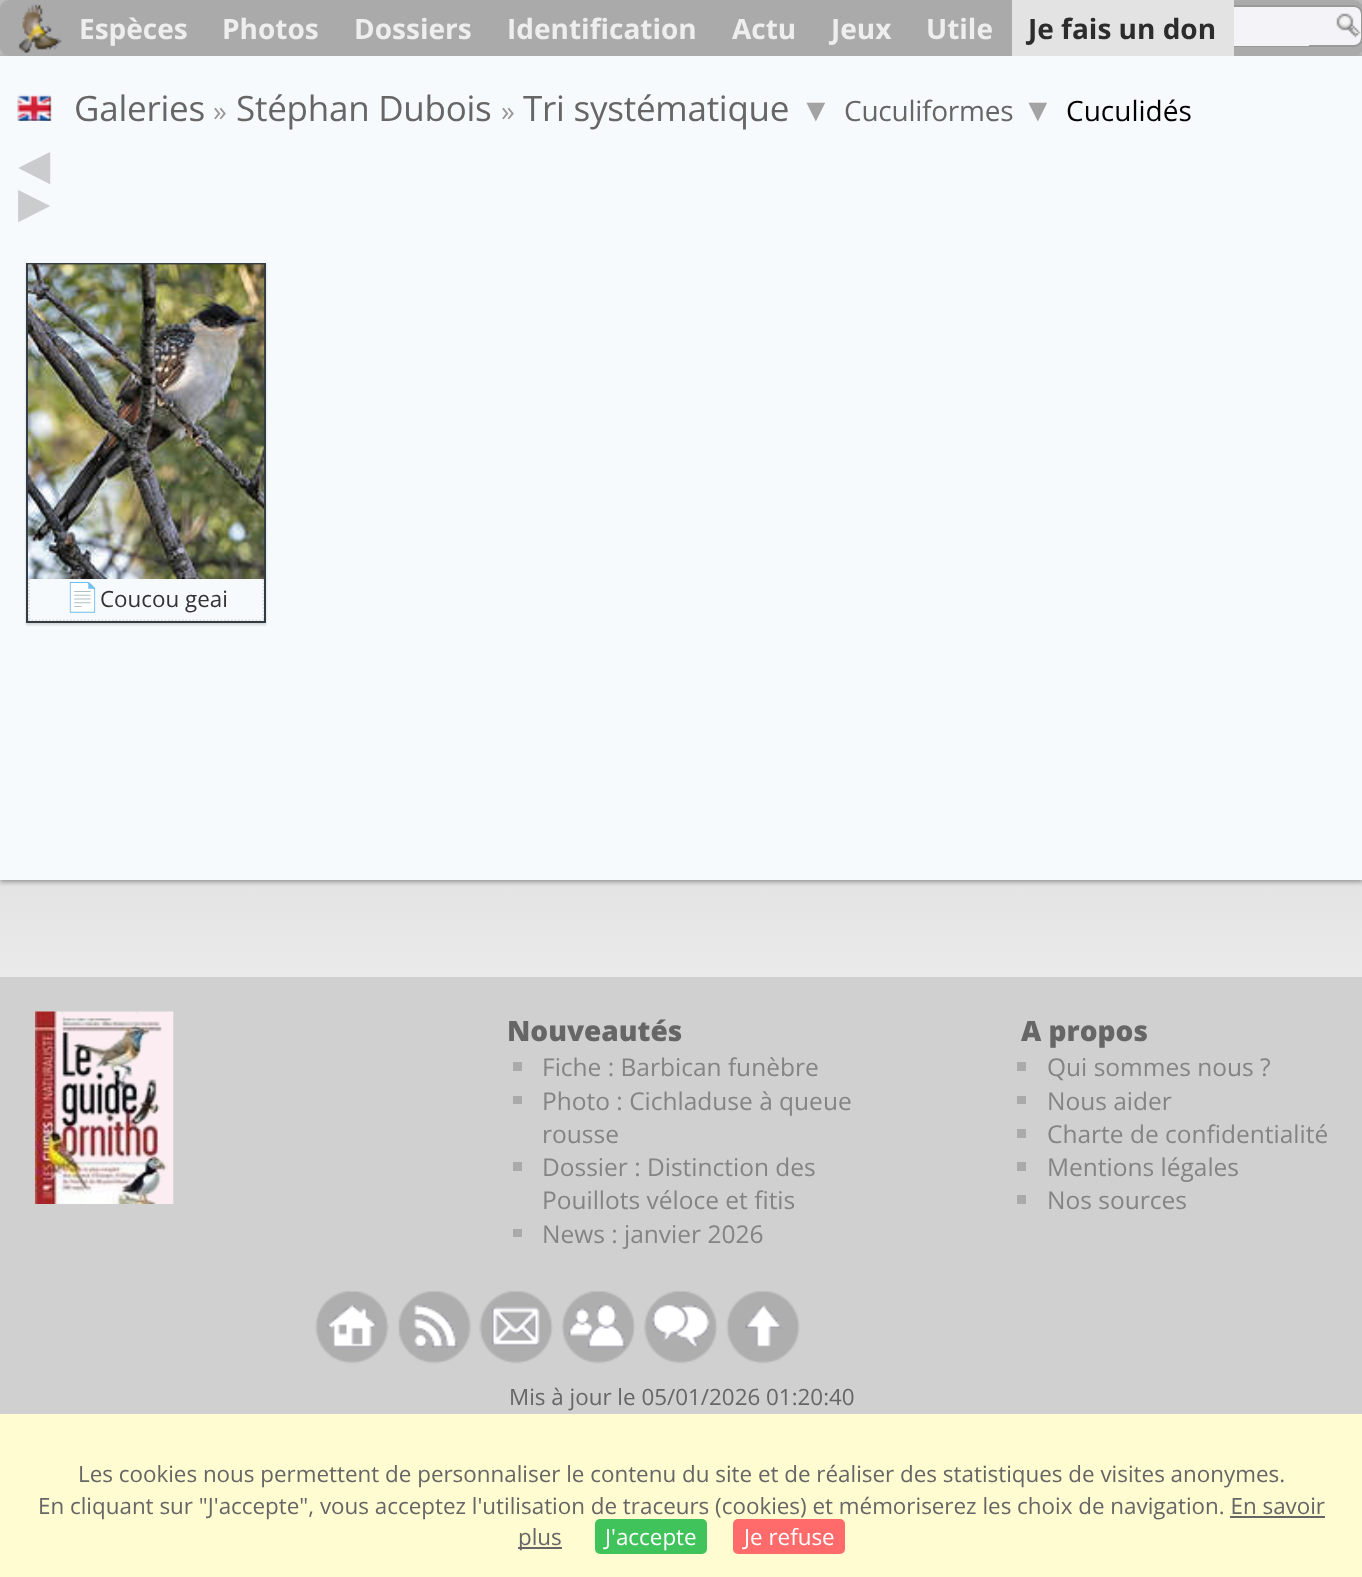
<svg xmlns="http://www.w3.org/2000/svg" width="1362" height="1577">
	<style>*{font-kerning:none!important;font-variant-ligatures:none!important}</style>
	<defs>
		<linearGradient id="g1" gradientUnits="userSpaceOnUse" x1="682" y1="0" x2="682" y2="1414"><stop offset="0" stop-color="#BBBBBB" /><stop offset="0.31" stop-color="#BBBBBB" /><stop offset="0.56" stop-color="#DDDDDD" /><stop offset="0.9" stop-color="#FFFFFF" /><stop offset="1" stop-color="#FFFFFF" /></linearGradient>
		<clipPath id="clip1"><path d="M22 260H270V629H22ZM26 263H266V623H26Z" clip-rule="evenodd" /></clipPath>
		<clipPath id="clip2"><rect x="28" y="264" width="236" height="357" /></clipPath>
	</defs>
	<rect width="100%" height="100%" fill="#FFFFFF" />
	<rect x="0" y="0" width="1362" height="977" fill="url(#g1)" />
	<rect x="0" y="58" width="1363" height="824" fill="#000000" fill-opacity="0.24" filter="blur(2px)" />
	<rect x="0" y="58" width="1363" height="824" fill="#000000" fill-opacity="0.12" filter="blur(2.5px)" />
	<rect x="0" y="0" width="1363" height="56" rx="9" fill="#AAAAAA" />
	<image x="18" y="4" width="44" height="49" href="assets/img1.png" />
	<g font-family="Open Sans" font-size="28" font-weight="700" fill="#EEEEEE">
		<text x="79" y="39">Espèces</text>
		<text x="222" y="39">Photos</text>
		<text x="354" y="39">Dossiers</text>
		<text x="507" y="39">Identification</text>
		<text x="732" y="39">Actu</text>
		<text x="831" y="39">Jeux</text>
		<text x="926" y="39">Utile</text>
	</g>
	<rect x="1098" y="6" width="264" height="40" rx="8" fill="#F3F3F8" stroke="#999999" stroke-width="2" />
	<rect x="1012" y="0" width="222" height="56" fill="#E3E3E3" />
	<text x="1028" y="39" font-family="Open Sans" font-size="28" font-weight="700" fill="#2C2C2C">Je fais un don</text>
	<image x="1336" y="13" width="25" height="25" href="assets/img2.png" />
	<rect x="1234" y="45" width="75" height="1" fill="#F3F3F8" />
	<rect x="0" y="56" width="1362" height="824" fill="#F7FAFC" />
	<image x="17" y="94" width="35" height="27" href="assets/img3.png" />
	<text x="74" y="121" font-family="Open Sans" font-size="35" letter-spacing="-0.25" fill="#666666">Galeries</text>
	<text x="213" y="121" font-family="Open Sans" font-size="28" fill="#999999">»</text>
	<text x="236" y="121" font-family="Open Sans" font-size="35" letter-spacing="-0.25" fill="#666666">Stéphan Dubois</text>
	<text x="501" y="121" font-family="Open Sans" font-size="28" fill="#999999">»</text>
	<text x="523" y="121" font-family="Open Sans" font-size="35" letter-spacing="-0.25" fill="#666666">Tri systématique</text>
	<text x="800" y="121" font-family="Liberation Sans" font-size="32" fill="#A3A3A3">▼</text>
	<text x="844" y="121" font-family="Open Sans" font-size="28" letter-spacing="-0.25" fill="#666666">Cuculiformes</text>
	<text x="1022" y="121" font-family="Liberation Sans" font-size="32" fill="#A3A3A3">▼</text>
	<text x="1066" y="121" font-family="Open Sans" font-size="28" fill="#000000">Cuculidés</text>
	<g font-family="DejaVu Sans" font-size="42" fill="#CACCCE">
		<text x="18" y="179">◀</text>
		<text x="18" y="217">▶</text>
	</g>
	<g clip-path="url(#clip1)">
		<rect x="26" y="264" width="240" height="361" fill="#000000" fill-opacity="0.15" filter="blur(1px)" />
	</g>
	<rect x="27" y="264" width="238" height="358" fill="none" stroke="#343C43" stroke-width="2" />
	<image x="28" y="264" width="237" height="316" href="assets/img4.png" />
	<rect x="28" y="579" width="236" height="1" fill="#FAFAFA" fill-opacity="0.75" />
	<g clip-path="url(#clip2)">
		<path d="M263.5 579V621" fill="none" stroke="#DADADA" stroke-width="1.8" stroke-dasharray="1.75 1.75" />
		<path d="M28 620.5H264" fill="none" stroke="#DADADA" stroke-width="1.8" stroke-dasharray="1.75 1.75" />
	</g>
	<path d="M29 579V621" fill="none" stroke="#DADADA" stroke-width="1.8" stroke-dasharray="1.75 1.75" />
	<text x="65" y="607" font-family="Noto Color Emoji" font-size="28" fill="#333333">📄</text>
	<text x="100" y="607" font-family="Open Sans" font-size="22.4" fill="#333333">Coucou geai</text>
	<rect x="0" y="977" width="1362" height="437" fill="#D0D0D0" />
	<image x="35" y="1011" width="139" height="193" href="assets/img5.png" />
	<text x="507" y="1041" font-family="Open Sans" font-size="28" font-weight="800" fill="#666666">Nouveautés</text>
	<rect x="513" y="1062" width="9" height="9" fill="#AAAAAA" />
	<text x="542" y="1076" font-family="Open Sans" font-size="24.5" fill="#848484">Fiche : Barbican funèbre</text>
	<rect x="513" y="1096" width="9" height="8" fill="#AAAAAA" />
	<g font-family="Open Sans" font-size="24.5" fill="#848484">
		<text x="542" y="1110">Photo : Cichladuse à queue</text>
		<text x="542" y="1143">rousse</text>
	</g>
	<rect x="513" y="1162" width="9" height="9" fill="#AAAAAA" />
	<g font-family="Open Sans" font-size="24.5" fill="#848484">
		<text x="542" y="1176">Dossier : Distinction des</text>
		<text x="542" y="1209">Pouillots véloce et fitis</text>
	</g>
	<rect x="513" y="1229" width="9" height="8" fill="#AAAAAA" />
	<text x="542" y="1243" font-family="Open Sans" font-size="24.5" fill="#848484">News : janvier 2026</text>
	<text x="1021" y="1041" font-family="Open Sans" font-size="28" font-weight="800" fill="#666666">A propos</text>
	<rect x="1017" y="1062" width="9" height="9" fill="#AAAAAA" />
	<text x="1047" y="1076" font-family="Open Sans" font-size="24.5" fill="#848484">Qui sommes nous ?</text>
	<rect x="1017" y="1096" width="9" height="8" fill="#AAAAAA" />
	<text x="1047" y="1110" font-family="Open Sans" font-size="24.5" fill="#848484">Nous aider</text>
	<rect x="1017" y="1129" width="9" height="9" fill="#AAAAAA" />
	<text x="1047" y="1143" font-family="Open Sans" font-size="24.5" fill="#848484">Charte de confidentialité</text>
	<rect x="1017" y="1162" width="9" height="9" fill="#AAAAAA" />
	<text x="1047" y="1176" font-family="Open Sans" font-size="24.5" fill="#848484">Mentions légales</text>
	<rect x="1017" y="1195" width="9" height="9" fill="#AAAAAA" />
	<text x="1047" y="1209" font-family="Open Sans" font-size="24.5" fill="#848484">Nos sources</text>
	<image x="315" y="1291" width="74" height="73" href="assets/img6.png" />
	<image x="398" y="1291" width="73" height="73" href="assets/img7.png" />
	<image x="479" y="1291" width="74" height="73" href="assets/img8.png" />
	<image x="561" y="1291" width="74" height="73" href="assets/img9.png" />
	<image x="644" y="1291" width="74" height="73" href="assets/img10.png" />
	<image x="726" y="1291" width="74" height="73" href="assets/img11.png" />
	<text x="509" y="1405" font-family="Open Sans" font-size="22.4" fill="#666666">Mis à jour le 05/01/2026 01:20:40</text>
	<rect x="0" y="1414" width="1362" height="163" fill="#FFFCD1" />
	<g font-family="Open Sans" font-size="22.4" fill="#666666">
		<text x="78" y="1482">Les cookies nous permettent de personnaliser le contenu du site et de réaliser des statistiques de visites anonymes.</text>
		<text x="38" y="1514">En cliquant sur "J'accepte", vous acceptez l'utilisation de traceurs (cookies) et mémoriserez les choix de navigation. En savoir</text>
	</g>
	<rect x="518" y="1547" width="44" height="2" fill="#666666" />
	<text x="518" y="1545" font-family="Open Sans" font-size="22.4" fill="#666666">plus</text>
	<rect x="1230" y="1516" width="95" height="2" fill="#666666" />
	<rect x="595" y="1519" width="112" height="35" rx="5" fill="#3FC35A" />
	<text x="605" y="1545" font-family="Open Sans" font-size="22.4" fill="#FFFFFF">J'accepte</text>
	<rect x="733" y="1519" width="112" height="35" rx="5" fill="#FF6B6B" />
	<text x="744" y="1545" font-family="Open Sans" font-size="22.4" fill="#FFFFFF">Je refuse</text>
</svg>
